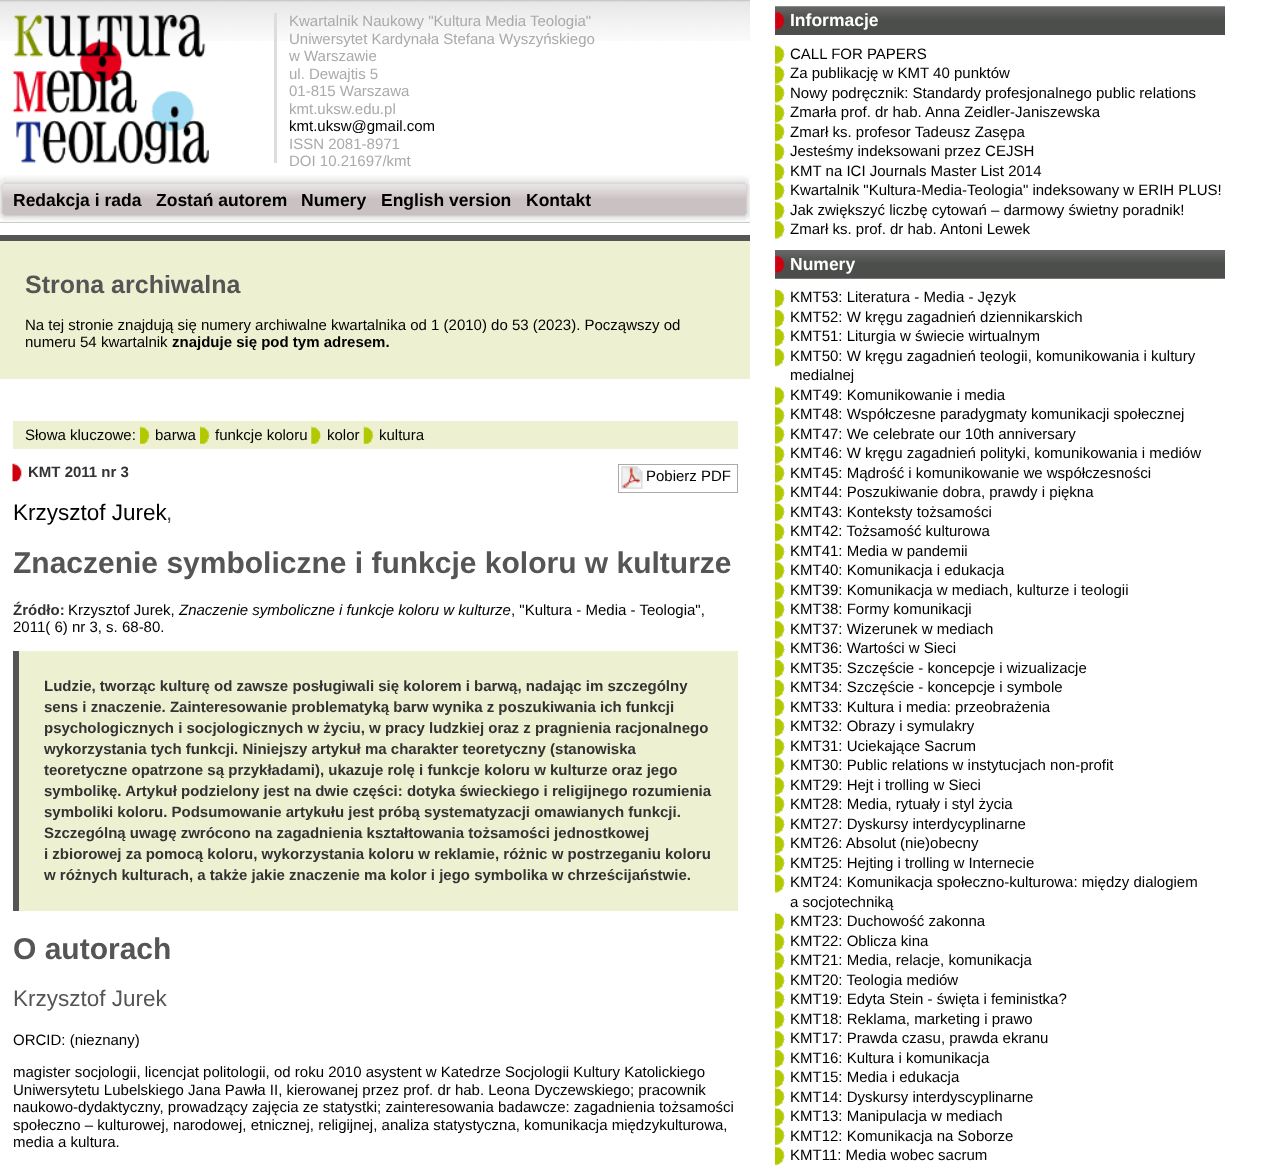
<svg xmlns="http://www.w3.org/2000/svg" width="1276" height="1166">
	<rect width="100%" height="100%" fill="#FFFFFF" />
	<image x="0" y="0" width="750" height="41" href="assets/img1.png" />
	<image x="12" y="13" width="197" height="151" href="assets/img2.png" />
	<rect x="274" y="13" width="3" height="150" fill="#DDDDDD" />
	<g font-family="Liberation Sans" font-size="15" fill="#AAAAAA">
		<text x="289" y="26">Kwartalnik Naukowy "Kultura Media Teologia"</text>
		<text x="289" y="44">Uniwersytet Kardynała Stefana Wyszyńskiego</text>
		<text x="289" y="61">w Warszawie</text>
		<text x="289" y="79">ul. Dewajtis 5</text>
		<text x="289" y="96">01-815 Warszawa</text>
		<text x="289" y="114">kmt.uksw.edu.pl</text>
	</g>
	<text x="289" y="131" font-family="Liberation Sans" font-size="15" fill="#000000">kmt.uksw@gmail.com</text>
	<g font-family="Liberation Sans" font-size="15" fill="#AAAAAA">
		<text x="289" y="149">ISSN 2081-8971</text>
		<text x="289" y="166">DOI 10.21697/kmt</text>
	</g>
	<rect x="0" y="222" width="750" height="1" fill="#999999" />
	<image x="0" y="175" width="750" height="48" href="assets/img3.png" />
	<g font-family="Liberation Sans" font-size="17.5" font-weight="700" fill="#000000">
		<text x="13" y="206">Redakcja i rada</text>
		<text x="156" y="206">Zostań autorem</text>
		<text x="301" y="206">Numery</text>
		<text x="381" y="206">English version</text>
		<text x="526" y="206">Kontakt</text>
	</g>
	<rect x="0" y="241" width="750" height="138" fill="#EDF1D1" />
	<rect x="0" y="235" width="750" height="6" fill="#555555" />
	<text x="25" y="293" font-family="Liberation Sans" font-size="25" font-weight="700" fill="#555555">Strona archiwalna</text>
	<g font-family="Liberation Sans" font-size="15" fill="#000000">
		<text x="25" y="330">Na tej stronie znajdują się numery archiwalne kwartalnika od 1 (2010) do 53 (2023). Począwszy od</text>
		<text x="25" y="347">numeru 54 kwartalnik</text>
	</g>
	<text x="172" y="347" font-family="Liberation Sans" font-size="15" font-weight="700" fill="#000000">znajduje się pod tym adresem.</text>
	<rect x="13" y="421" width="725" height="28" fill="#EDF1D1" />
	<text x="25" y="440" font-family="Liberation Sans" font-size="15" fill="#000000">Słowa kluczowe:</text>
	<image x="140" y="426" width="10" height="18" href="assets/img4.png" />
	<text x="155" y="440" font-family="Liberation Sans" font-size="15" fill="#000000">barwa</text>
	<image x="200" y="426" width="10" height="18" href="assets/img4.png" />
	<text x="215" y="440" font-family="Liberation Sans" font-size="15" fill="#000000">funkcje koloru</text>
	<image x="311" y="426" width="11" height="18" href="assets/img5.png" />
	<text x="327" y="440" font-family="Liberation Sans" font-size="15" fill="#000000">kolor</text>
	<image x="363" y="426" width="11" height="18" href="assets/img6.png" />
	<text x="379" y="440" font-family="Liberation Sans" font-size="15" fill="#000000">kultura</text>
	<image x="12" y="463" width="10" height="19" href="assets/img7.png" />
	<text x="28" y="477" font-family="Liberation Sans" font-size="15" font-weight="700" fill="#333333">KMT 2011 nr 3</text>
	<image x="621" y="466" width="22" height="23" href="assets/img8.png" />
	<rect x="618.5" y="464.5" width="119" height="28" fill="none" stroke="#AAAAAA" />
	<text x="646" y="481" font-family="Liberation Sans" font-size="15" fill="#000000">Pobierz PDF</text>
	<text x="13" y="520" font-family="Liberation Sans" font-size="22.5" fill="#000000">Krzysztof Jurek</text>
	<text x="166" y="520" font-family="Liberation Sans" font-size="22.5" fill="#555555">,</text>
	<text x="13" y="573" font-family="Liberation Sans" font-size="30" font-weight="700" fill="#555555">Znaczenie symboliczne i funkcje koloru w kulturze</text>
	<text x="13" y="615" font-family="Liberation Sans" font-size="15" font-weight="700" fill="#333333">Źródło:</text>
	<text x="68" y="615" font-family="Liberation Sans" font-size="15" fill="#000000">Krzysztof Jurek,</text>
	<text x="179" y="615" font-family="Liberation Sans" font-size="15" font-style="italic" fill="#000000">Znaczenie symboliczne i funkcje koloru w kulturze</text>
	<g font-family="Liberation Sans" font-size="15" fill="#000000">
		<text x="511" y="615">, "Kultura - Media - Teologia",</text>
		<text x="13" y="632">2011( 6) nr 3, s. 68-80.</text>
	</g>
	<rect x="19" y="651" width="719" height="260" fill="#EDF1D1" />
	<rect x="13" y="651" width="6" height="260" fill="#555555" />
	<g font-family="Liberation Sans" font-size="15" font-weight="700" fill="#333333">
		<text x="44" y="691">Ludzie, tworząc kulturę od zawsze posługiwali się kolorem i barwą, nadając im szczególny</text>
		<text x="44" y="712">sens i znaczenie. Zainteresowanie problematyką barw wynika z poszukiwania ich funkcji</text>
		<text x="44" y="733">psychologicznych i socjologicznych w życiu, w pracy ludzkiej oraz z pragnienia racjonalnego</text>
		<text x="44" y="754">wykorzystania tych funkcji. Niniejszy artykuł ma charakter teoretyczny (stanowiska</text>
		<text x="44" y="775">teoretyczne opatrzone są przykładami), ukazuje rolę i funkcje koloru w kulturze oraz jego</text>
		<text x="44" y="796">symbolikę. Artykuł podzielony jest na dwie części: dotyka świeckiego i religijnego rozumienia</text>
		<text x="44" y="817">symboliki koloru. Podsumowanie artykułu jest próbą systematyzacji omawianych funkcji.</text>
		<text x="44" y="838">Szczególną uwagę zwrócono na zagadnienia kształtowania tożsamości jednostkowej</text>
		<text x="44" y="859">i zbiorowej za pomocą koloru, wykorzystania koloru w reklamie, różnic w postrzeganiu koloru</text>
		<text x="44" y="880">w różnych kulturach, a także jakie znaczenie ma kolor i jego symbolika w chrześcijaństwie.</text>
	</g>
	<text x="13" y="959" font-family="Liberation Sans" font-size="30" font-weight="700" fill="#555555">O autorach</text>
	<text x="13" y="1006" font-family="Liberation Sans" font-size="22.5" fill="#555555">Krzysztof Jurek</text>
	<g font-family="Liberation Sans" font-size="15" fill="#000000">
		<text x="13" y="1045">ORCID: (nieznany)</text>
		<text x="13" y="1077">magister socjologii, licencjat politologii, od roku 2010 asystent w Katedrze Socjologii Kultury Katolickiego</text>
		<text x="13" y="1095">Uniwersytetu Lubelskiego Jana Pawła II, kierowanej przez prof. dr hab. Leona Dyczewskiego; pracownik</text>
		<text x="13" y="1112">naukowo-dydaktyczny, prowadzący zajęcia ze statystki; zainteresowania badawcze: zagadnienia tożsamości</text>
		<text x="13" y="1130">społeczno – kulturowej, narodowej, etnicznej, religijnej, analiza statystyczna, komunikacja międzykulturowa,</text>
		<text x="13" y="1147">media a kultura.</text>
	</g>
	<image x="775" y="6" width="450" height="29" href="assets/img9.png" />
	<text x="790" y="26" font-family="Liberation Sans" font-size="17.5" font-weight="700" fill="#FFFFFF">Informacje</text>
	<image x="775" y="45" width="10" height="19" href="assets/img10.png" />
	<text x="790" y="59" font-family="Liberation Sans" font-size="15" fill="#000000">CALL FOR PAPERS</text>
	<image x="775" y="65" width="10" height="19" href="assets/img10.png" />
	<text x="790" y="78" font-family="Liberation Sans" font-size="15" fill="#000000">Za publikację w KMT 40 punktów</text>
	<image x="775" y="83" width="10" height="20" href="assets/img11.png" />
	<text x="790" y="98" font-family="Liberation Sans" font-size="15" fill="#000000">Nowy podręcznik: Standardy profesjonalnego public relations</text>
	<image x="775" y="103" width="10" height="20" href="assets/img12.png" />
	<text x="790" y="117" font-family="Liberation Sans" font-size="15" fill="#000000">Zmarła prof. dr hab. Anna Zeidler-Janiszewska</text>
	<image x="775" y="122" width="10" height="20" href="assets/img13.png" />
	<text x="790" y="137" font-family="Liberation Sans" font-size="15" fill="#000000">Zmarł ks. profesor Tadeusz Zasępa</text>
	<image x="775" y="142" width="10" height="20" href="assets/img14.png" />
	<text x="790" y="156" font-family="Liberation Sans" font-size="15" fill="#000000">Jesteśmy indeksowani przez CEJSH</text>
	<image x="775" y="162" width="10" height="20" href="assets/img14.png" />
	<text x="790" y="176" font-family="Liberation Sans" font-size="15" fill="#000000">KMT na ICI Journals Master List 2014</text>
	<image x="775" y="181" width="10" height="19" href="assets/img15.png" />
	<text x="790" y="195" font-family="Liberation Sans" font-size="15" fill="#000000">Kwartalnik "Kultura-Media-Teologia" indeksowany w ERIH PLUS!</text>
	<image x="775" y="201" width="10" height="19" href="assets/img16.png" />
	<text x="790" y="215" font-family="Liberation Sans" font-size="15" fill="#000000">Jak zwiększyć liczbę cytowań – darmowy świetny poradnik!</text>
	<image x="775" y="220" width="10" height="19" href="assets/img10.png" />
	<text x="790" y="234" font-family="Liberation Sans" font-size="15" fill="#000000">Zmarł ks. prof. dr hab. Antoni Lewek</text>
	<image x="775" y="250" width="450" height="29" href="assets/img17.png" />
	<text x="790" y="270" font-family="Liberation Sans" font-size="17.5" font-weight="700" fill="#FFFFFF">Numery</text>
	<image x="775" y="288" width="10" height="20" href="assets/img18.png" />
	<text x="790" y="302" font-family="Liberation Sans" font-size="15" fill="#000000">KMT53: Literatura - Media - Język</text>
	<image x="775" y="308" width="10" height="20" href="assets/img12.png" />
	<text x="790" y="322" font-family="Liberation Sans" font-size="15" fill="#000000">KMT52: W kręgu zagadnień dziennikarskich</text>
	<image x="775" y="327" width="10" height="20" href="assets/img13.png" />
	<text x="790" y="341" font-family="Liberation Sans" font-size="15" fill="#000000">KMT51: Liturgia w świecie wirtualnym</text>
	<image x="775" y="347" width="10" height="20" href="assets/img14.png" />
	<g font-family="Liberation Sans" font-size="15" fill="#000000">
		<text x="790" y="361">KMT50: W kręgu zagadnień teologii, komunikowania i kultury</text>
		<text x="790" y="380">medialnej</text>
	</g>
	<image x="775" y="386" width="10" height="19" href="assets/img16.png" />
	<text x="790" y="400" font-family="Liberation Sans" font-size="15" fill="#000000">KMT49: Komunikowanie i media</text>
	<image x="775" y="406" width="10" height="19" href="assets/img16.png" />
	<text x="790" y="419" font-family="Liberation Sans" font-size="15" fill="#000000">KMT48: Współczesne paradygmaty komunikacji społecznej</text>
	<image x="775" y="425" width="10" height="19" href="assets/img10.png" />
	<text x="790" y="439" font-family="Liberation Sans" font-size="15" fill="#000000">KMT47: We celebrate our 10th anniversary</text>
	<image x="775" y="445" width="10" height="19" href="assets/img10.png" />
	<text x="790" y="458" font-family="Liberation Sans" font-size="15" fill="#000000">KMT46: W kręgu zagadnień polityki, komunikowania i mediów</text>
	<image x="775" y="463" width="10" height="20" href="assets/img11.png" />
	<text x="790" y="478" font-family="Liberation Sans" font-size="15" fill="#000000">KMT45: Mądrość i komunikowanie we współczesności</text>
	<image x="775" y="483" width="10" height="20" href="assets/img12.png" />
	<text x="790" y="497" font-family="Liberation Sans" font-size="15" fill="#000000">KMT44: Poszukiwanie dobra, prawdy i piękna</text>
	<image x="775" y="502" width="10" height="20" href="assets/img13.png" />
	<text x="790" y="517" font-family="Liberation Sans" font-size="15" fill="#000000">KMT43: Konteksty tożsamości</text>
	<image x="775" y="522" width="10" height="20" href="assets/img14.png" />
	<text x="790" y="536" font-family="Liberation Sans" font-size="15" fill="#000000">KMT42: Tożsamość kulturowa</text>
	<image x="775" y="542" width="10" height="20" href="assets/img14.png" />
	<text x="790" y="556" font-family="Liberation Sans" font-size="15" fill="#000000">KMT41: Media w pandemii</text>
	<image x="775" y="561" width="10" height="19" href="assets/img15.png" />
	<text x="790" y="575" font-family="Liberation Sans" font-size="15" fill="#000000">KMT40: Komunikacja i edukacja</text>
	<image x="775" y="581" width="10" height="19" href="assets/img19.png" />
	<text x="790" y="595" font-family="Liberation Sans" font-size="15" fill="#000000">KMT39: Komunikacja w mediach, kulturze i teologii</text>
	<image x="775" y="600" width="10" height="19" href="assets/img10.png" />
	<text x="790" y="614" font-family="Liberation Sans" font-size="15" fill="#000000">KMT38: Formy komunikacji</text>
	<image x="775" y="620" width="10" height="19" href="assets/img10.png" />
	<text x="790" y="634" font-family="Liberation Sans" font-size="15" fill="#000000">KMT37: Wizerunek w mediach</text>
	<image x="775" y="640" width="10" height="19" href="assets/img10.png" />
	<text x="790" y="653" font-family="Liberation Sans" font-size="15" fill="#000000">KMT36: Wartości w Sieci</text>
	<image x="775" y="658" width="10" height="20" href="assets/img11.png" />
	<text x="790" y="673" font-family="Liberation Sans" font-size="15" fill="#000000">KMT35: Szczęście - koncepcje i wizualizacje</text>
	<image x="775" y="678" width="10" height="20" href="assets/img12.png" />
	<text x="790" y="692" font-family="Liberation Sans" font-size="15" fill="#000000">KMT34: Szczęście - koncepcje i symbole</text>
	<image x="775" y="697" width="10" height="20" href="assets/img13.png" />
	<text x="790" y="712" font-family="Liberation Sans" font-size="15" fill="#000000">KMT33: Kultura i media: przeobrażenia</text>
	<image x="775" y="717" width="10" height="20" href="assets/img14.png" />
	<text x="790" y="731" font-family="Liberation Sans" font-size="15" fill="#000000">KMT32: Obrazy i symulakry</text>
	<image x="775" y="737" width="10" height="20" href="assets/img14.png" />
	<text x="790" y="751" font-family="Liberation Sans" font-size="15" fill="#000000">KMT31: Uciekające Sacrum</text>
	<image x="775" y="756" width="10" height="19" href="assets/img15.png" />
	<text x="790" y="770" font-family="Liberation Sans" font-size="15" fill="#000000">KMT30: Public relations w instytucjach non-profit</text>
	<image x="775" y="776" width="10" height="19" href="assets/img20.png" />
	<text x="790" y="790" font-family="Liberation Sans" font-size="15" fill="#000000">KMT29: Hejt i trolling w Sieci</text>
	<image x="775" y="795" width="10" height="19" href="assets/img10.png" />
	<text x="790" y="809" font-family="Liberation Sans" font-size="15" fill="#000000">KMT28: Media, rytuały i styl życia</text>
	<image x="775" y="815" width="10" height="19" href="assets/img10.png" />
	<text x="790" y="829" font-family="Liberation Sans" font-size="15" fill="#000000">KMT27: Dyskursy interdycyplinarne</text>
	<image x="775" y="835" width="10" height="19" href="assets/img10.png" />
	<text x="790" y="848" font-family="Liberation Sans" font-size="15" fill="#000000">KMT26: Absolut (nie)obecny</text>
	<image x="775" y="853" width="10" height="20" href="assets/img11.png" />
	<text x="790" y="868" font-family="Liberation Sans" font-size="15" fill="#000000">KMT25: Hejting i trolling w Internecie</text>
	<image x="775" y="873" width="10" height="20" href="assets/img12.png" />
	<g font-family="Liberation Sans" font-size="15" fill="#000000">
		<text x="790" y="887">KMT24: Komunikacja społeczno-kulturowa: między dialogiem</text>
		<text x="790" y="907">a socjotechniką</text>
	</g>
	<image x="775" y="912" width="10" height="20" href="assets/img14.png" />
	<text x="790" y="926" font-family="Liberation Sans" font-size="15" fill="#000000">KMT23: Duchowość zakonna</text>
	<image x="775" y="932" width="10" height="20" href="assets/img14.png" />
	<text x="790" y="946" font-family="Liberation Sans" font-size="15" fill="#000000">KMT22: Oblicza kina</text>
	<image x="775" y="951" width="10" height="19" href="assets/img15.png" />
	<text x="790" y="965" font-family="Liberation Sans" font-size="15" fill="#000000">KMT21: Media, relacje, komunikacja</text>
	<image x="775" y="971" width="10" height="19" href="assets/img16.png" />
	<text x="790" y="985" font-family="Liberation Sans" font-size="15" fill="#000000">KMT20: Teologia mediów</text>
	<image x="775" y="990" width="10" height="19" href="assets/img10.png" />
	<text x="790" y="1004" font-family="Liberation Sans" font-size="15" fill="#000000">KMT19: Edyta Stein - święta i feministka?</text>
	<image x="775" y="1010" width="10" height="19" href="assets/img10.png" />
	<text x="790" y="1024" font-family="Liberation Sans" font-size="15" fill="#000000">KMT18: Reklama, marketing i prawo</text>
	<image x="775" y="1030" width="10" height="19" href="assets/img10.png" />
	<text x="790" y="1043" font-family="Liberation Sans" font-size="15" fill="#000000">KMT17: Prawda czasu, prawda ekranu</text>
	<image x="775" y="1048" width="10" height="20" href="assets/img11.png" />
	<text x="790" y="1063" font-family="Liberation Sans" font-size="15" fill="#000000">KMT16: Kultura i komunikacja</text>
	<image x="775" y="1068" width="10" height="20" href="assets/img12.png" />
	<text x="790" y="1082" font-family="Liberation Sans" font-size="15" fill="#000000">KMT15: Media i edukacja</text>
	<image x="775" y="1087" width="10" height="20" href="assets/img13.png" />
	<text x="790" y="1102" font-family="Liberation Sans" font-size="15" fill="#000000">KMT14: Dyskursy interdyscyplinarne</text>
	<image x="775" y="1107" width="10" height="20" href="assets/img14.png" />
	<text x="790" y="1121" font-family="Liberation Sans" font-size="15" fill="#000000">KMT13: Manipulacja w mediach</text>
	<image x="775" y="1126" width="10" height="19" href="assets/img15.png" />
	<text x="790" y="1141" font-family="Liberation Sans" font-size="15" fill="#000000">KMT12: Komunikacja na Soborze</text>
	<image x="775" y="1146" width="10" height="19" href="assets/img16.png" />
	<text x="790" y="1160" font-family="Liberation Sans" font-size="15" fill="#000000">KMT11: Media wobec sacrum</text>
</svg>
